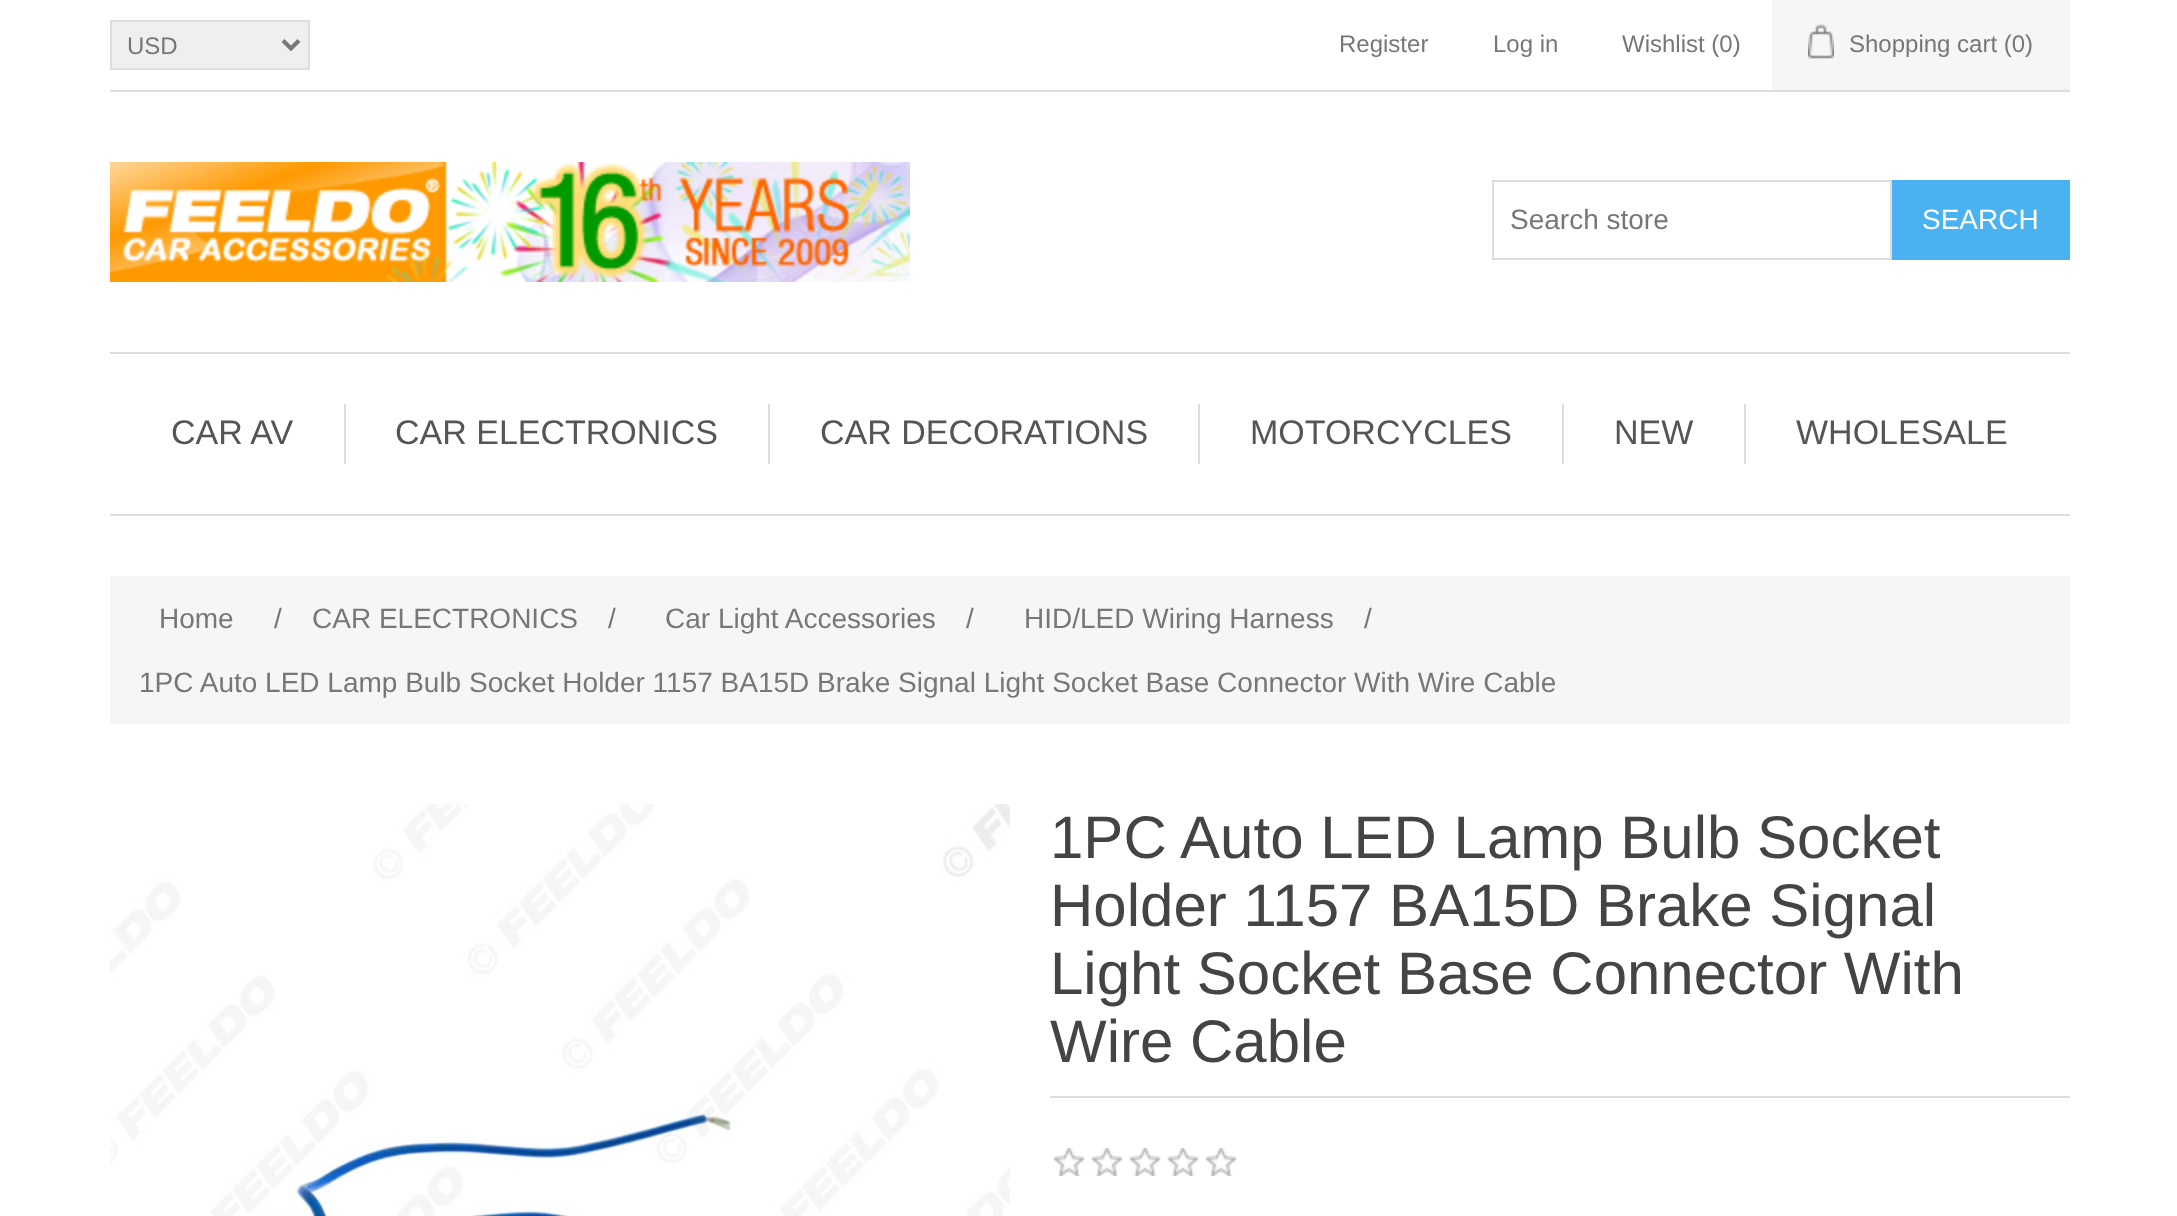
<svg xmlns="http://www.w3.org/2000/svg" width="2177" height="1216">
	<rect width="100%" height="100%" fill="#FFFFFF" />
	<rect x="110" y="90" width="1960" height="2" fill="#DDDDDD" />
	<rect x="111" y="21" width="198" height="48" fill="#EFEFEF" stroke="#DDDDDD" stroke-width="2" />
	<path d="M283 40.5L291 48.5L299 40.5" fill="none" stroke="#777777" stroke-width="4" />
	<g font-family="Liberation Sans" font-size="24" fill="#777777">
		<text x="127" y="54">USD</text>
		<text x="1339" y="52">Register</text>
		<text x="1493" y="52">Log in</text>
		<text x="1622" y="52">Wishlist (0)</text>
	</g>
	<rect x="1772" y="0" width="298" height="90" fill="#F6F6F6" />
	<image x="1808" y="24" width="26" height="35" href="assets/img1.png" />
	<text x="1849" y="52" font-family="Liberation Sans" font-size="24" fill="#777777">Shopping cart (0)</text>
	<image x="110" y="162" width="800" height="120" href="assets/img2.png" />
	<rect x="1493" y="181" width="398" height="78" fill="none" stroke="#DDDDDD" stroke-width="2" />
	<text x="1510" y="229" font-family="Liberation Sans" font-size="28" fill="#777777">Search store</text>
	<rect x="1892" y="180" width="178" height="80" fill="#4AB2F1" />
	<text x="1922" y="229" font-family="Liberation Sans" font-size="28" fill="#FFFFFF">SEARCH</text>
	<rect x="110" y="352" width="1960" height="2" fill="#DDDDDD" />
	<rect x="110" y="514" width="1960" height="2" fill="#DDDDDD" />
	<text x="171" y="444" font-family="Liberation Sans" font-size="34" fill="#555555">CAR AV</text>
	<rect x="344" y="404" width="2" height="60" fill="#DDDDDD" />
	<text x="395" y="444" font-family="Liberation Sans" font-size="34" fill="#555555">CAR ELECTRONICS</text>
	<rect x="768" y="404" width="2" height="60" fill="#DDDDDD" />
	<text x="820" y="444" font-family="Liberation Sans" font-size="34" fill="#555555">CAR DECORATIONS</text>
	<rect x="1198" y="404" width="2" height="60" fill="#DDDDDD" />
	<text x="1250" y="444" font-family="Liberation Sans" font-size="34" fill="#555555">MOTORCYCLES</text>
	<rect x="1562" y="404" width="2" height="60" fill="#DDDDDD" />
	<text x="1614" y="444" font-family="Liberation Sans" font-size="34" fill="#555555">NEW</text>
	<rect x="1744" y="404" width="2" height="60" fill="#DDDDDD" />
	<text x="1796" y="444" font-family="Liberation Sans" font-size="34" fill="#555555">WHOLESALE</text>
	<rect x="110" y="576" width="1960" height="148" fill="#F6F6F6" />
	<g font-family="Liberation Sans" font-size="28" fill="#777777">
		<text x="159" y="628">Home</text>
		<text x="274" y="628">/</text>
		<text x="312" y="628">CAR ELECTRONICS</text>
		<text x="608" y="628">/</text>
		<text x="665" y="628">Car Light Accessories</text>
		<text x="966" y="628">/</text>
		<text x="1024" y="628">HID/LED Wiring Harness</text>
		<text x="1364" y="628">/</text>
		<text x="139" y="692">1PC Auto LED Lamp Bulb Socket Holder 1157 BA15D Brake Signal Light Socket Base Connector With Wire Cable</text>
	</g>
	<image x="110" y="804" width="900" height="412" href="assets/img3.png" />
	<rect x="1050" y="1096" width="1020" height="2" fill="#DDDDDD" />
	<g font-family="Liberation Sans" font-size="60" fill="#444444">
		<text x="1050" y="858">1PC Auto LED Lamp Bulb Socket</text>
		<text x="1050" y="926">Holder 1157 BA15D Brake Signal</text>
		<text x="1050" y="994">Light Socket Base Connector With</text>
		<text x="1050" y="1062">Wire Cable</text>
	</g>
	<image x="1053" y="1148" width="184" height="28" href="assets/img4.png" />
</svg>
